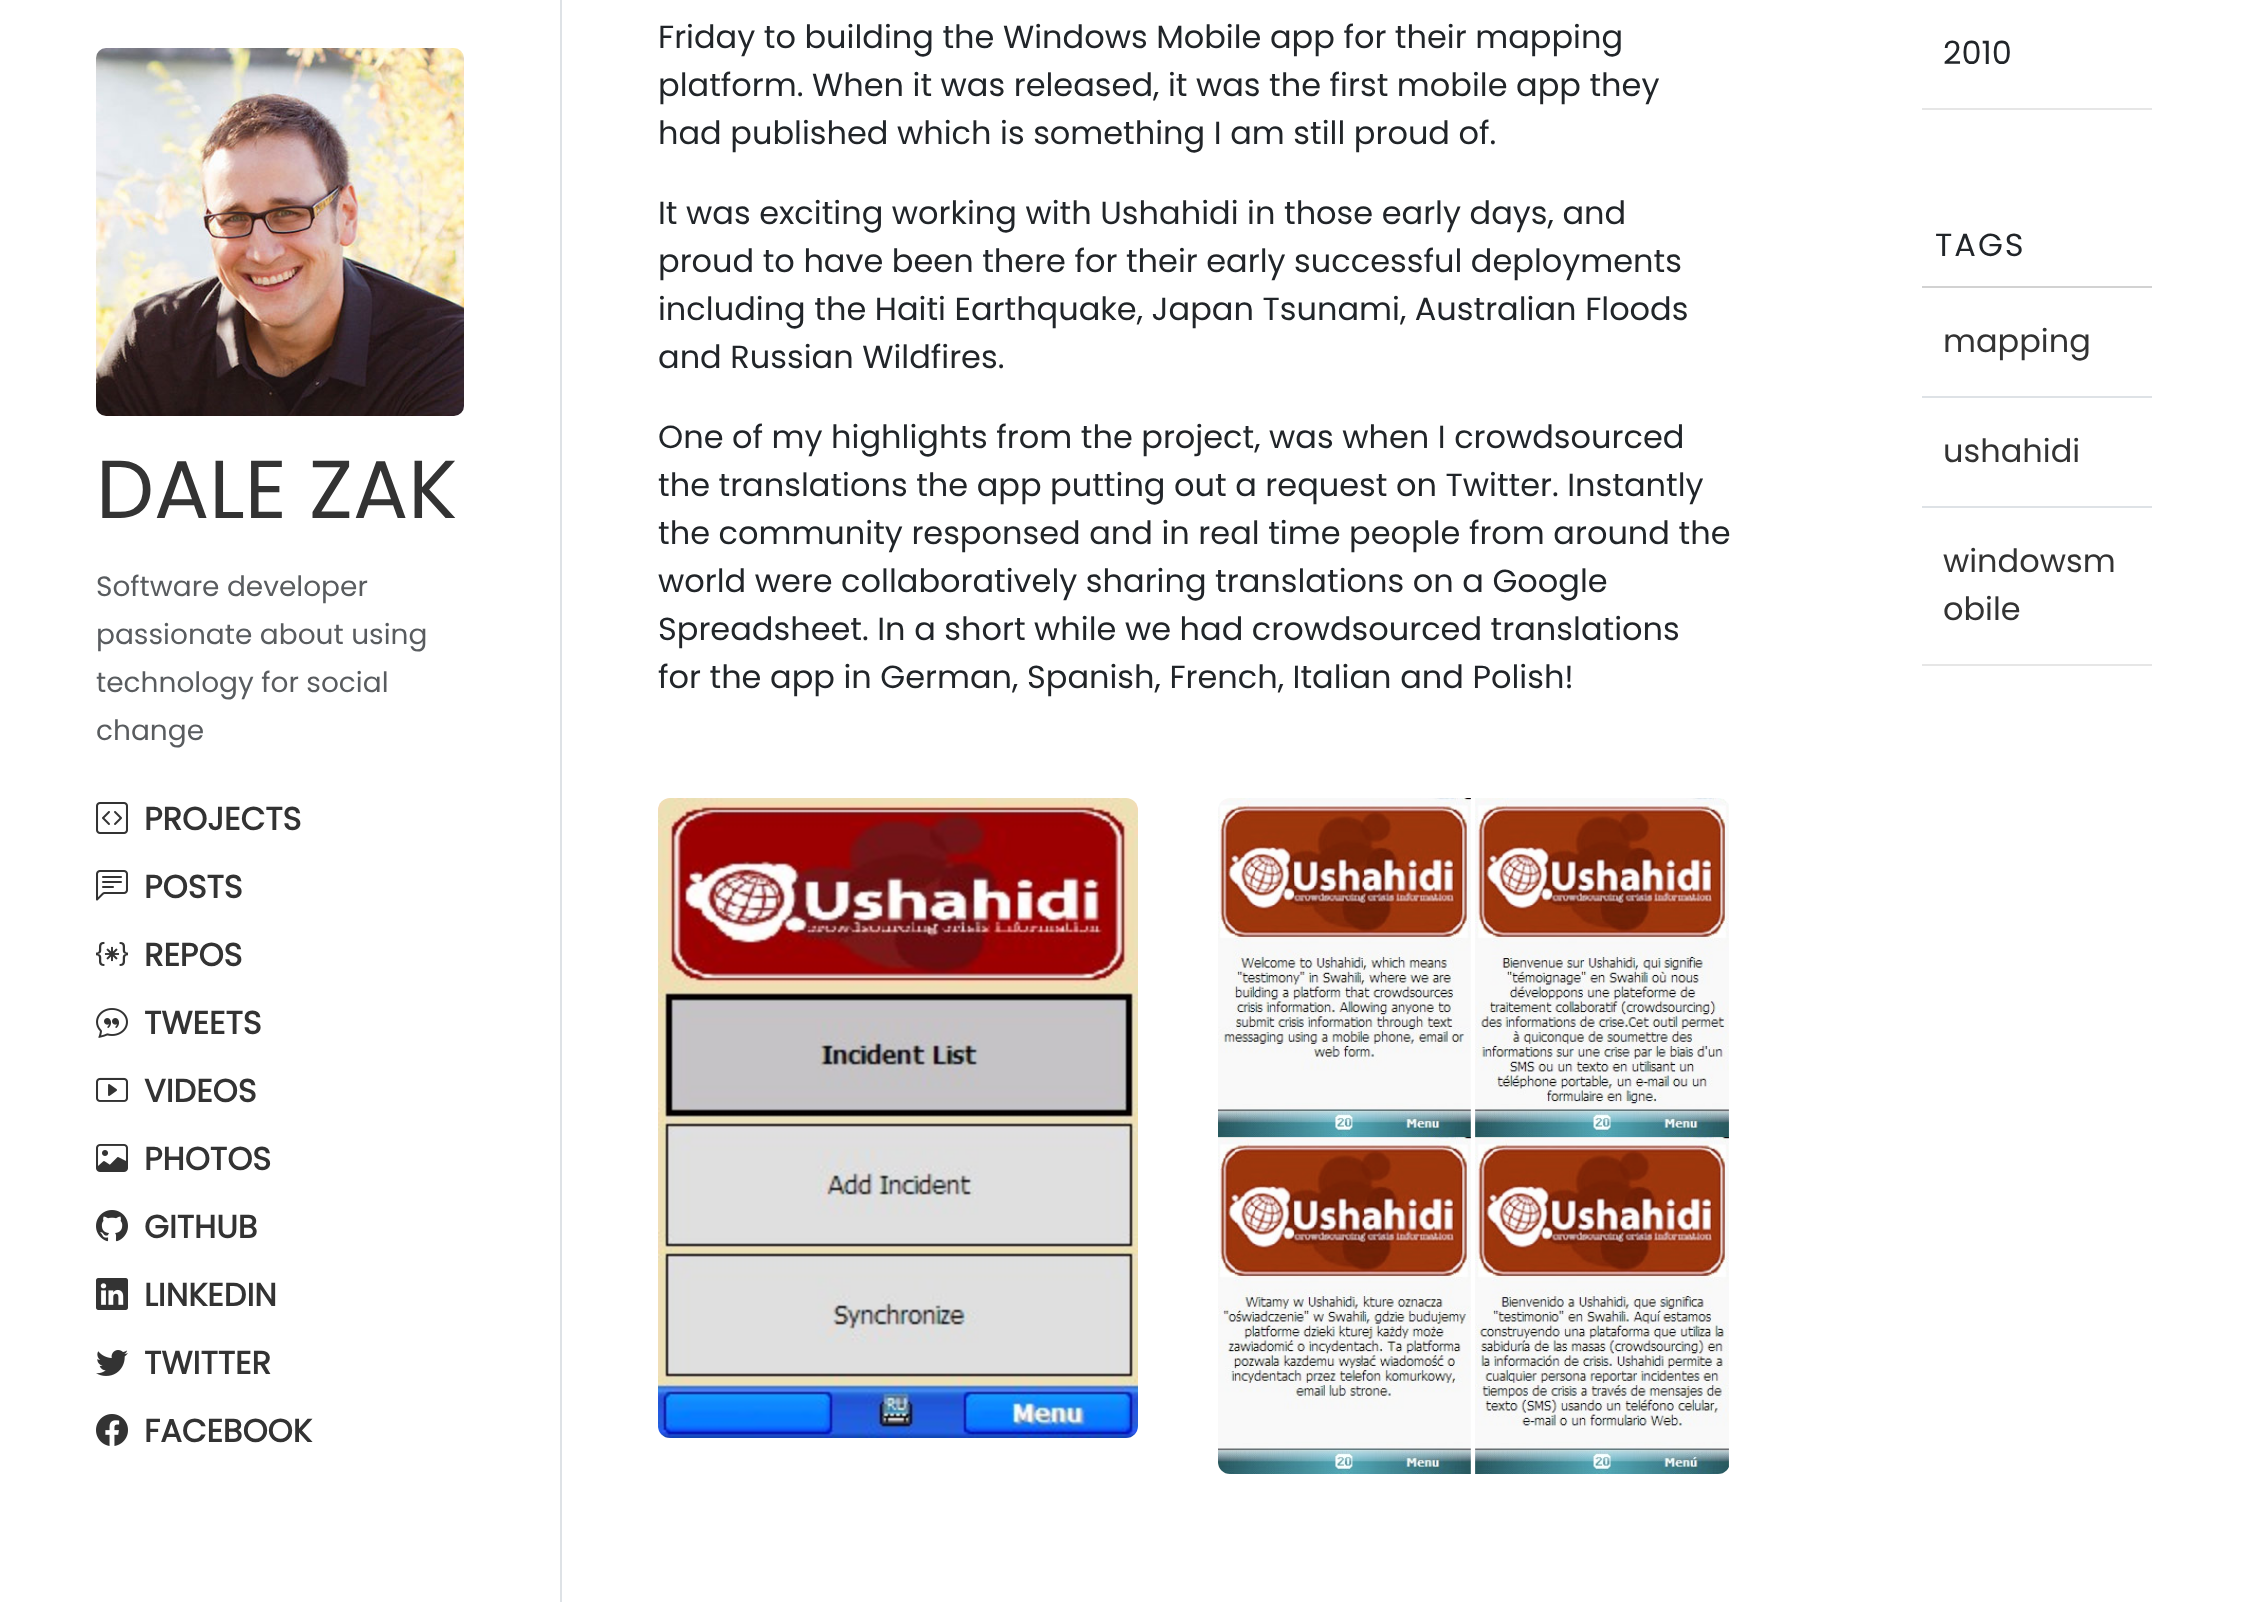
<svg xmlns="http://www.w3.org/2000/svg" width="2247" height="1602">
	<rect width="100%" height="100%" fill="#FFFFFF" />
	<g font-family="Poppins" font-size="32" fill="#212529">
		<text x="658" y="48">Friday to building the Windows Mobile app for their mapping</text>
		<text x="658" y="96">platform. When it was released, it was the first mobile app they</text>
		<text x="658" y="144">had published which is something I am still proud of.</text>
		<text x="658" y="224">It was exciting working with Ushahidi in those early days, and</text>
		<text x="658" y="272">proud to have been there for their early successful deployments</text>
		<text x="658" y="320">including the Haiti Earthquake, Japan Tsunami, Australian Floods</text>
		<text x="658" y="368">and Russian Wildfires.</text>
		<text x="658" y="448">One of my highlights from the project, was when I crowdsourced</text>
		<text x="658" y="496">the translations the app putting out a request on Twitter. Instantly</text>
		<text x="658" y="544">the community responsed and in real time people from around the</text>
		<text x="658" y="592">world were collaboratively sharing translations on a Google</text>
		<text x="658" y="640">Spreadsheet. In a short while we had crowdsourced translations</text>
		<text x="658" y="688">for the app in German, Spanish, French, Italian and Polish!</text>
	</g>
	<image x="658" y="798" width="480" height="640" href="assets/img1.png" />
	<image x="1218" y="798" width="511" height="676" href="assets/img2.png" />
	<rect x="1922" y="108" width="230" height="2" fill="#E6E6E6" />
	<text x="1943" y="64" font-family="Poppins" font-size="32" fill="#212529">2010</text>
	<rect x="1922" y="664" width="230" height="2" fill="#E6E6E6" />
	<rect x="1922" y="286" width="230" height="2" fill="#D2D2D2" />
	<text x="1935" y="256" font-family="Poppins" font-size="32" letter-spacing="2" fill="#212529">TAGS</text>
	<rect x="1922" y="396" width="230" height="2" fill="#DEE2E6" />
	<text x="1943" y="352" font-family="Poppins" font-size="32" fill="#333333">mapping</text>
	<rect x="1922" y="506" width="230" height="2" fill="#DEE2E6" />
	<g font-family="Poppins" font-size="32" fill="#333333">
		<text x="1943" y="462">ushahidi</text>
		<text x="1943" y="572">windowsm</text>
		<text x="1943" y="620">obile</text>
	</g>
	<rect x="560" y="0" width="2" height="1602" fill="#DEE2E6" />
	<image x="96" y="48" width="368" height="368" href="assets/img3.png" />
	<text x="96" y="518" font-family="Poppins" font-size="82" fill="#333333">DALE ZAK</text>
	<g font-family="Poppins" font-size="28" fill="#595C5F">
		<text x="96" y="596">Software developer</text>
		<text x="96" y="644">passionate about using</text>
		<text x="96" y="692">technology for social</text>
		<text x="96" y="740">change</text>
	</g>
	<image x="96" y="802" width="32" height="32" href="assets/img4.png" />
	<text x="144" y="830" font-family="Poppins" font-size="32" font-weight="700" fill="#333333">PROJECTS</text>
	<image x="96" y="870" width="32" height="31" href="assets/img5.png" />
	<text x="144" y="898" font-family="Poppins" font-size="32" font-weight="700" fill="#333333">POSTS</text>
	<image x="96" y="941" width="32" height="25" href="assets/img6.png" />
	<text x="144" y="966" font-family="Poppins" font-size="32" font-weight="700" fill="#333333">REPOS</text>
	<image x="96" y="1008" width="32" height="30" href="assets/img7.png" />
	<text x="144" y="1034" font-family="Poppins" font-size="32" font-weight="700" fill="#333333">TWEETS</text>
	<image x="96" y="1077" width="32" height="25" href="assets/img8.png" />
	<text x="144" y="1102" font-family="Poppins" font-size="32" font-weight="700" fill="#333333">VIDEOS</text>
	<image x="96" y="1144" width="32" height="28" href="assets/img9.png" />
	<text x="144" y="1170" font-family="Poppins" font-size="32" font-weight="700" fill="#333333">PHOTOS</text>
	<image x="96" y="1210" width="32" height="32" href="assets/img10.png" />
	<text x="144" y="1238" font-family="Poppins" font-size="32" font-weight="700" fill="#333333">GITHUB</text>
	<image x="96" y="1278" width="32" height="32" href="assets/img11.png" />
	<text x="144" y="1306" font-family="Poppins" font-size="32" font-weight="700" fill="#333333">LINKEDIN</text>
	<image x="96" y="1350" width="32" height="26" href="assets/img12.png" />
	<text x="144" y="1374" font-family="Poppins" font-size="32" font-weight="700" fill="#333333">TWITTER</text>
	<image x="96" y="1414" width="32" height="32" href="assets/img13.png" />
	<text x="144" y="1442" font-family="Poppins" font-size="32" font-weight="700" fill="#333333">FACEBOOK</text>
</svg>
